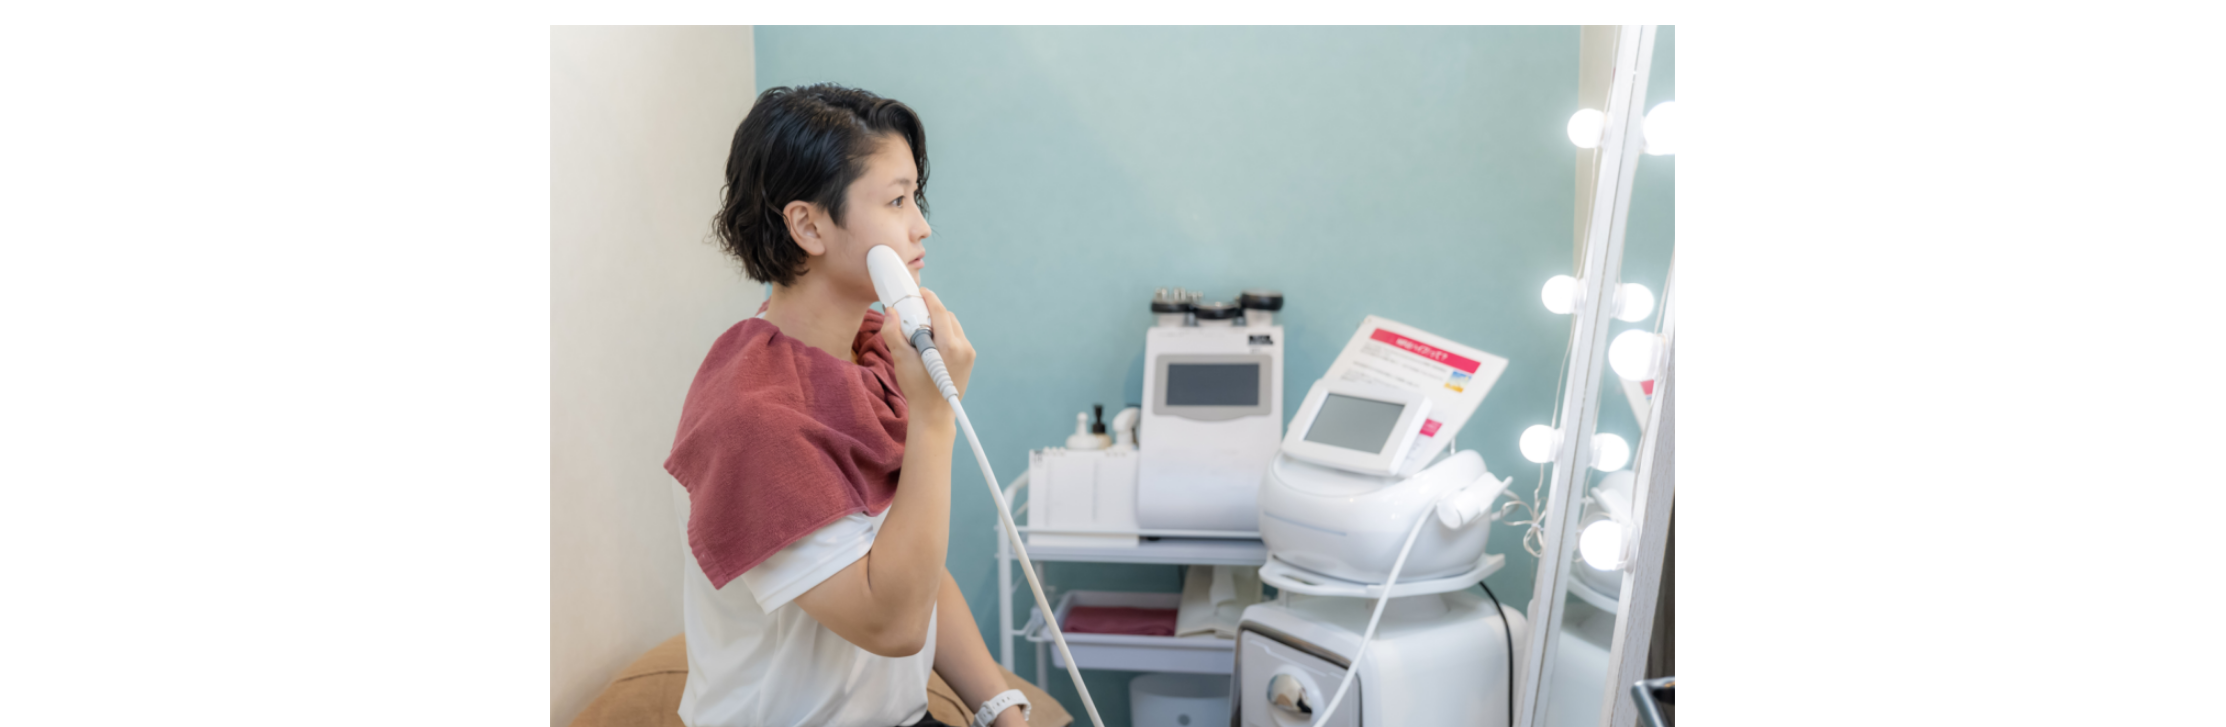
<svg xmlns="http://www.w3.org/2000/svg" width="2226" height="727">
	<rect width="100%" height="100%" fill="#FFFFFF" />
	<image x="550" y="25" width="1125" height="702" href="assets/img1.png" />
</svg>
